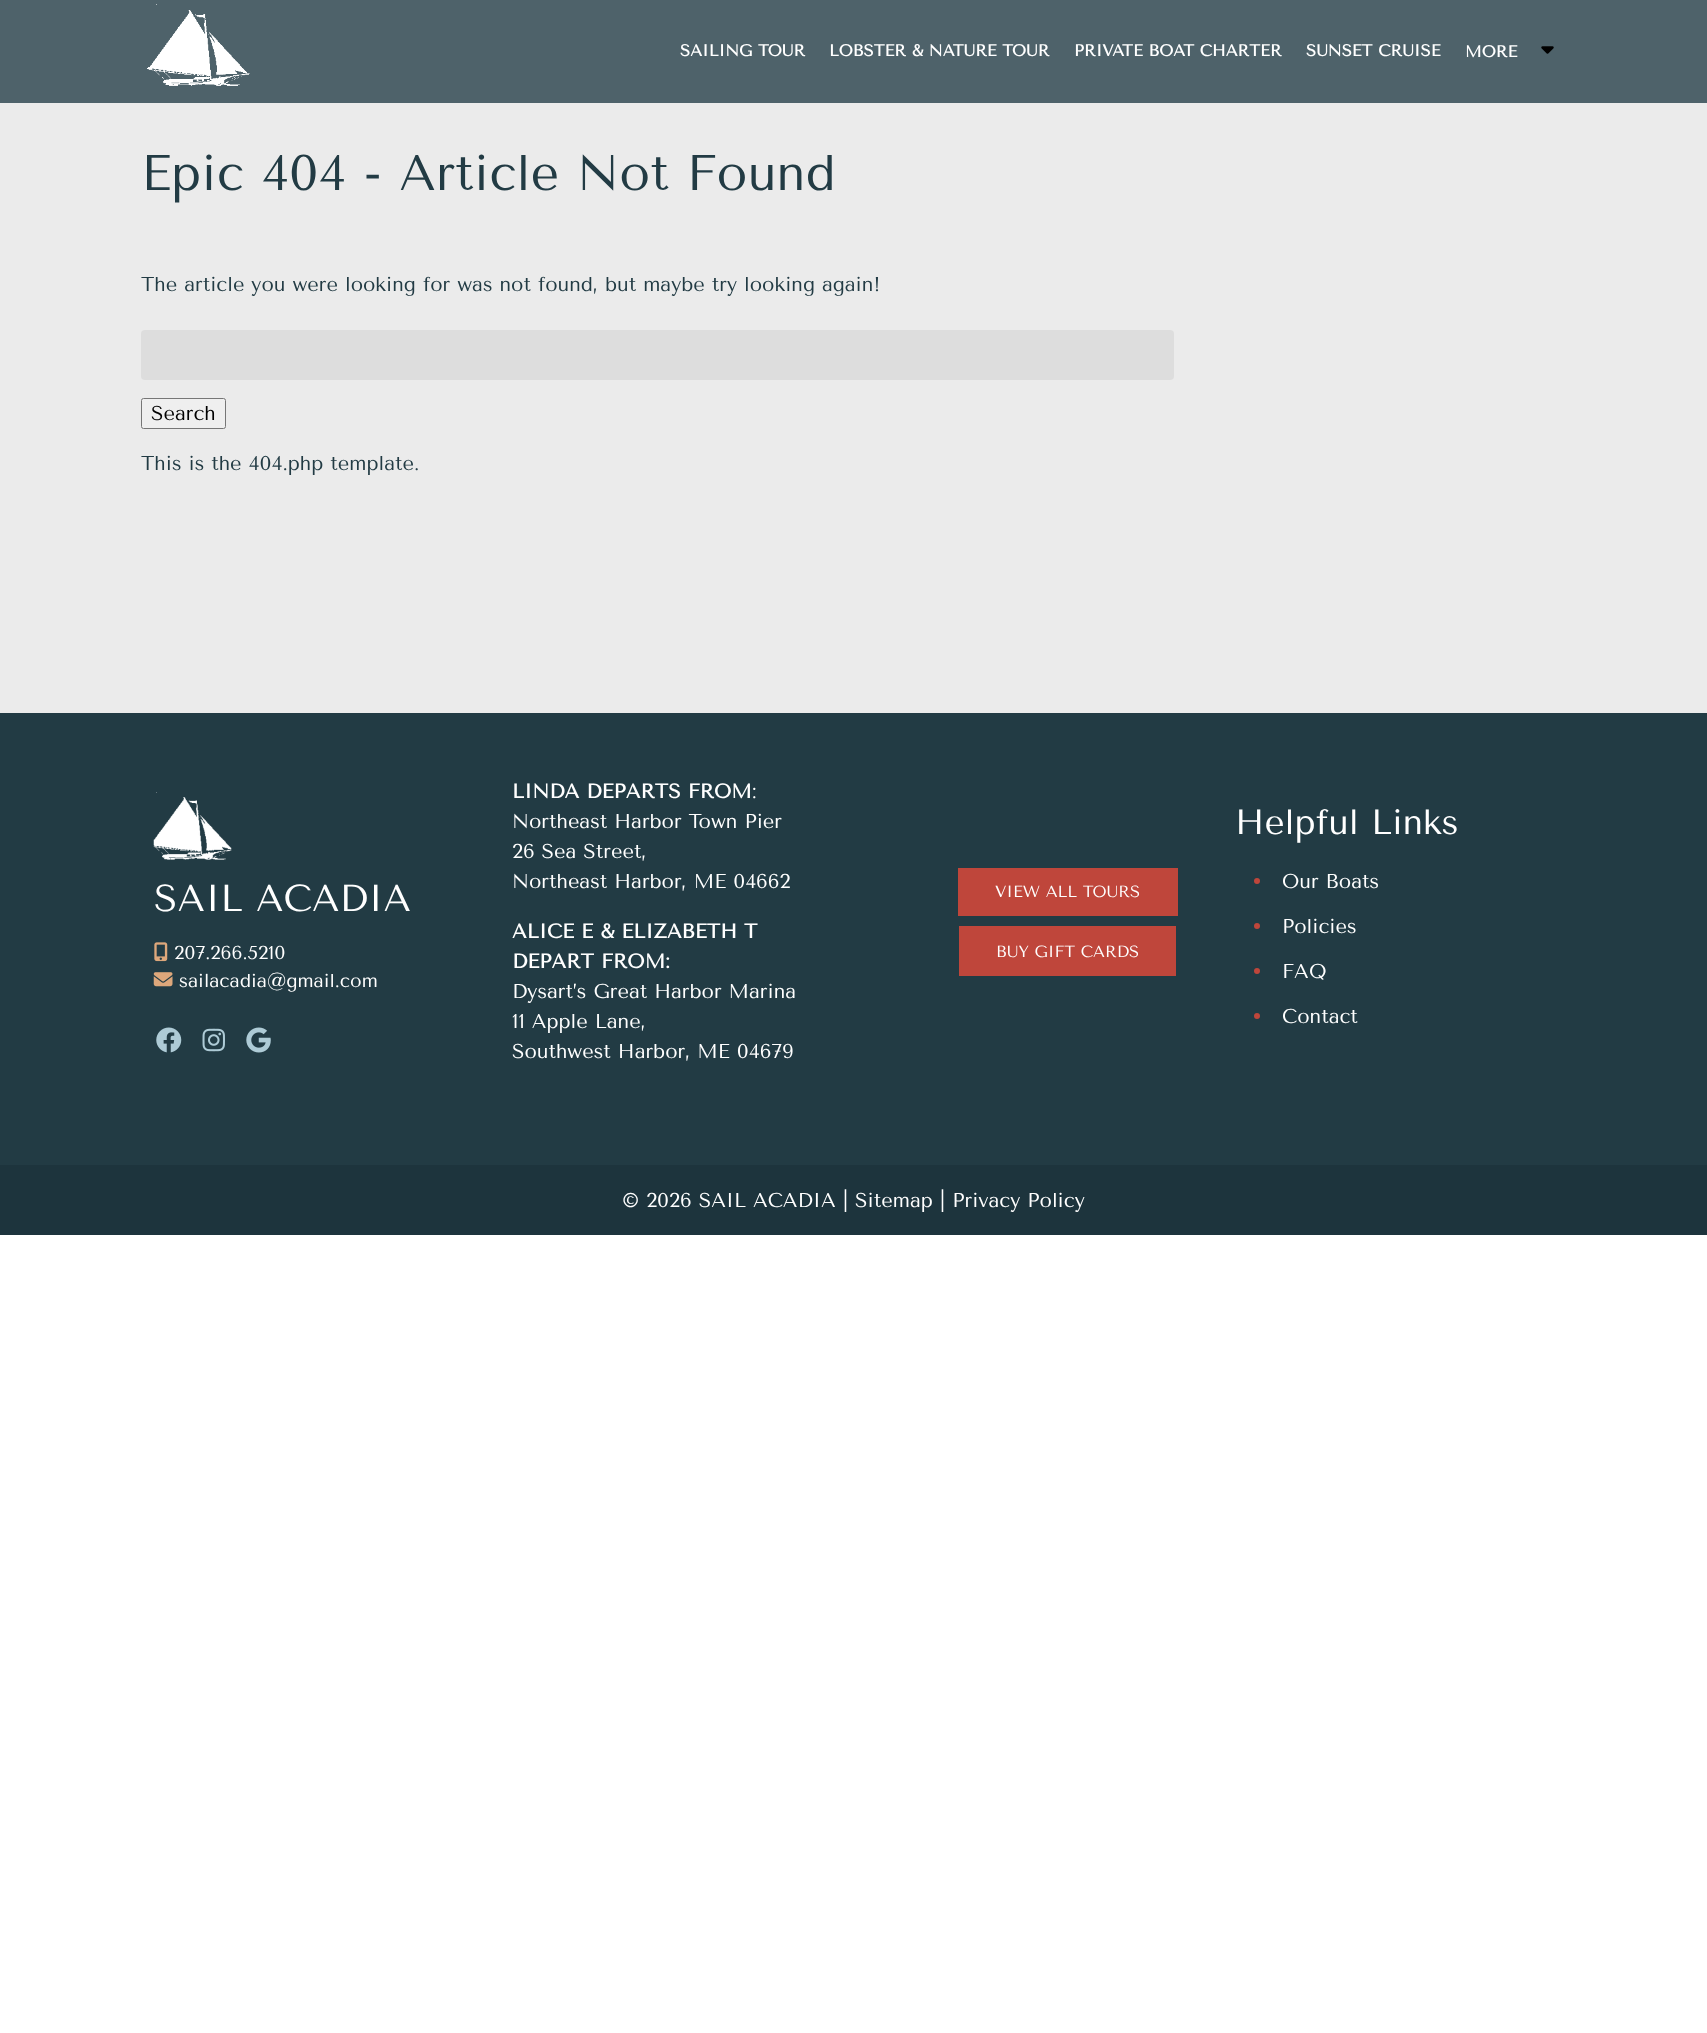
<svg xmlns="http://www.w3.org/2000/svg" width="1707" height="2033">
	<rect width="100%" height="100%" fill="#FFFFFF" />
	<rect x="0" y="0" width="1707" height="103" fill="#4E626A" />
	<image x="147" y="4" width="103" height="82" href="assets/img1.png" />
	<g font-family="Tenor Sans" font-size="16.25" font-weight="700" fill="#FFFFFF">
		<text x="680" y="56">SAILING TOUR</text>
		<text x="829" y="56">LOBSTER &amp; NATURE TOUR</text>
		<text x="1074" y="56">PRIVATE BOAT CHARTER</text>
		<text x="1306" y="56">SUNSET CRUISE</text>
		<text x="1465" y="57">MORE</text>
	</g>
	<image x="1541" y="46" width="13" height="8" href="assets/img2.png" />
	<rect x="0" y="103" width="1707" height="610" fill="#EBEBEB" />
	<text x="141" y="190" font-family="Tenor Sans" font-size="50" fill="#223B44">Epic 404 - Article Not Found</text>
	<text x="141" y="291" font-family="Tenor Sans" font-size="20" fill="#223B44">The article you were looking for was not found, but maybe try looking again!</text>
	<rect x="141" y="330" width="1033" height="50" rx="4" fill="#DDDDDD" />
	<rect x="141.5" y="398.5" width="84" height="30" rx="2" fill="#EFEFEF" stroke="#767676" />
	<text x="151" y="420" font-family="Tenor Sans" font-size="20" fill="#000000">Search</text>
	<text x="141" y="470" font-family="Tenor Sans" font-size="20" fill="#223B44">This is the 404.php template.</text>
	<rect x="0" y="713" width="1707" height="452" fill="#223B44" />
	<image x="153" y="792" width="79" height="68" href="assets/img3.png" />
	<text x="154" y="911" font-family="Tenor Sans" font-size="37.5" fill="#FFFFFF">SAIL ACADIA</text>
	<image x="154" y="942" width="14" height="20" href="assets/img4.png" />
	<text x="174" y="959" font-family="Tenor Sans" font-size="18.75" fill="#FFFFFF">207.266.5210</text>
	<image x="153" y="972" width="20" height="15" href="assets/img5.png" />
	<text x="179" y="987" font-family="Tenor Sans" font-size="18.75" fill="#FFFFFF">sailacadia@gmail.com</text>
	<image x="156" y="1027" width="26" height="26" href="assets/img6.png" />
	<image x="202" y="1028" width="23" height="24" href="assets/img7.png" />
	<image x="246" y="1027" width="25" height="26" href="assets/img8.png" />
	<text x="512" y="798" font-family="Tenor Sans" font-size="20" font-weight="700" fill="#FFFFFF">LINDA DEPARTS FROM</text>
	<g font-family="Tenor Sans" font-size="20" fill="#FFFFFF">
		<text x="752" y="798">:</text>
		<text x="512" y="828">Northeast Harbor Town Pier</text>
		<text x="512" y="858">26 Sea Street,</text>
		<text x="512" y="888">Northeast Harbor, ME 04662</text>
	</g>
	<g font-family="Tenor Sans" font-size="20" font-weight="700" fill="#FFFFFF">
		<text x="512" y="938">ALICE E &amp; ELIZABETH T</text>
		<text x="512" y="968">DEPART FROM:</text>
	</g>
	<g font-family="Tenor Sans" font-size="20" fill="#FFFFFF">
		<text x="512" y="998">Dysart’s Great Harbor Marina</text>
		<text x="512" y="1028">11 Apple Lane,</text>
		<text x="512" y="1058">Southwest Harbor, ME 04679</text>
	</g>
	<rect x="958" y="868" width="220" height="48" fill="#BF463B" />
	<text x="995" y="897" font-family="Tenor Sans" font-size="16.25" fill="#FFFFFF">VIEW ALL TOURS</text>
	<rect x="959" y="926" width="217" height="50" fill="#BF463B" />
	<text x="996" y="957" font-family="Tenor Sans" font-size="16.25" fill="#FFFFFF">BUY GIFT CARDS</text>
	<text x="1235" y="834" font-family="Tenor Sans" font-size="35" fill="#FFFFFF">Helpful Links</text>
	<circle cx="1257" cy="881" r="3" fill="#BF463B" />
	<text x="1282" y="888" font-family="Tenor Sans" font-size="20" fill="#FFFFFF">Our Boats</text>
	<circle cx="1257" cy="926" r="3" fill="#BF463B" />
	<text x="1282" y="933" font-family="Tenor Sans" font-size="20" fill="#FFFFFF">Policies</text>
	<circle cx="1257" cy="971" r="3" fill="#BF463B" />
	<text x="1282" y="978" font-family="Tenor Sans" font-size="20" fill="#FFFFFF">FAQ</text>
	<circle cx="1257" cy="1016" r="3" fill="#BF463B" />
	<text x="1282" y="1023" font-family="Tenor Sans" font-size="20" fill="#FFFFFF">Contact</text>
	<rect x="0" y="1165" width="1707" height="70" fill="#1D343D" />
	<text x="622" y="1207" font-family="Tenor Sans" font-size="20" fill="#FFFFFF">© 2026 SAIL ACADIA | Sitemap | Privacy Policy</text>
</svg>
